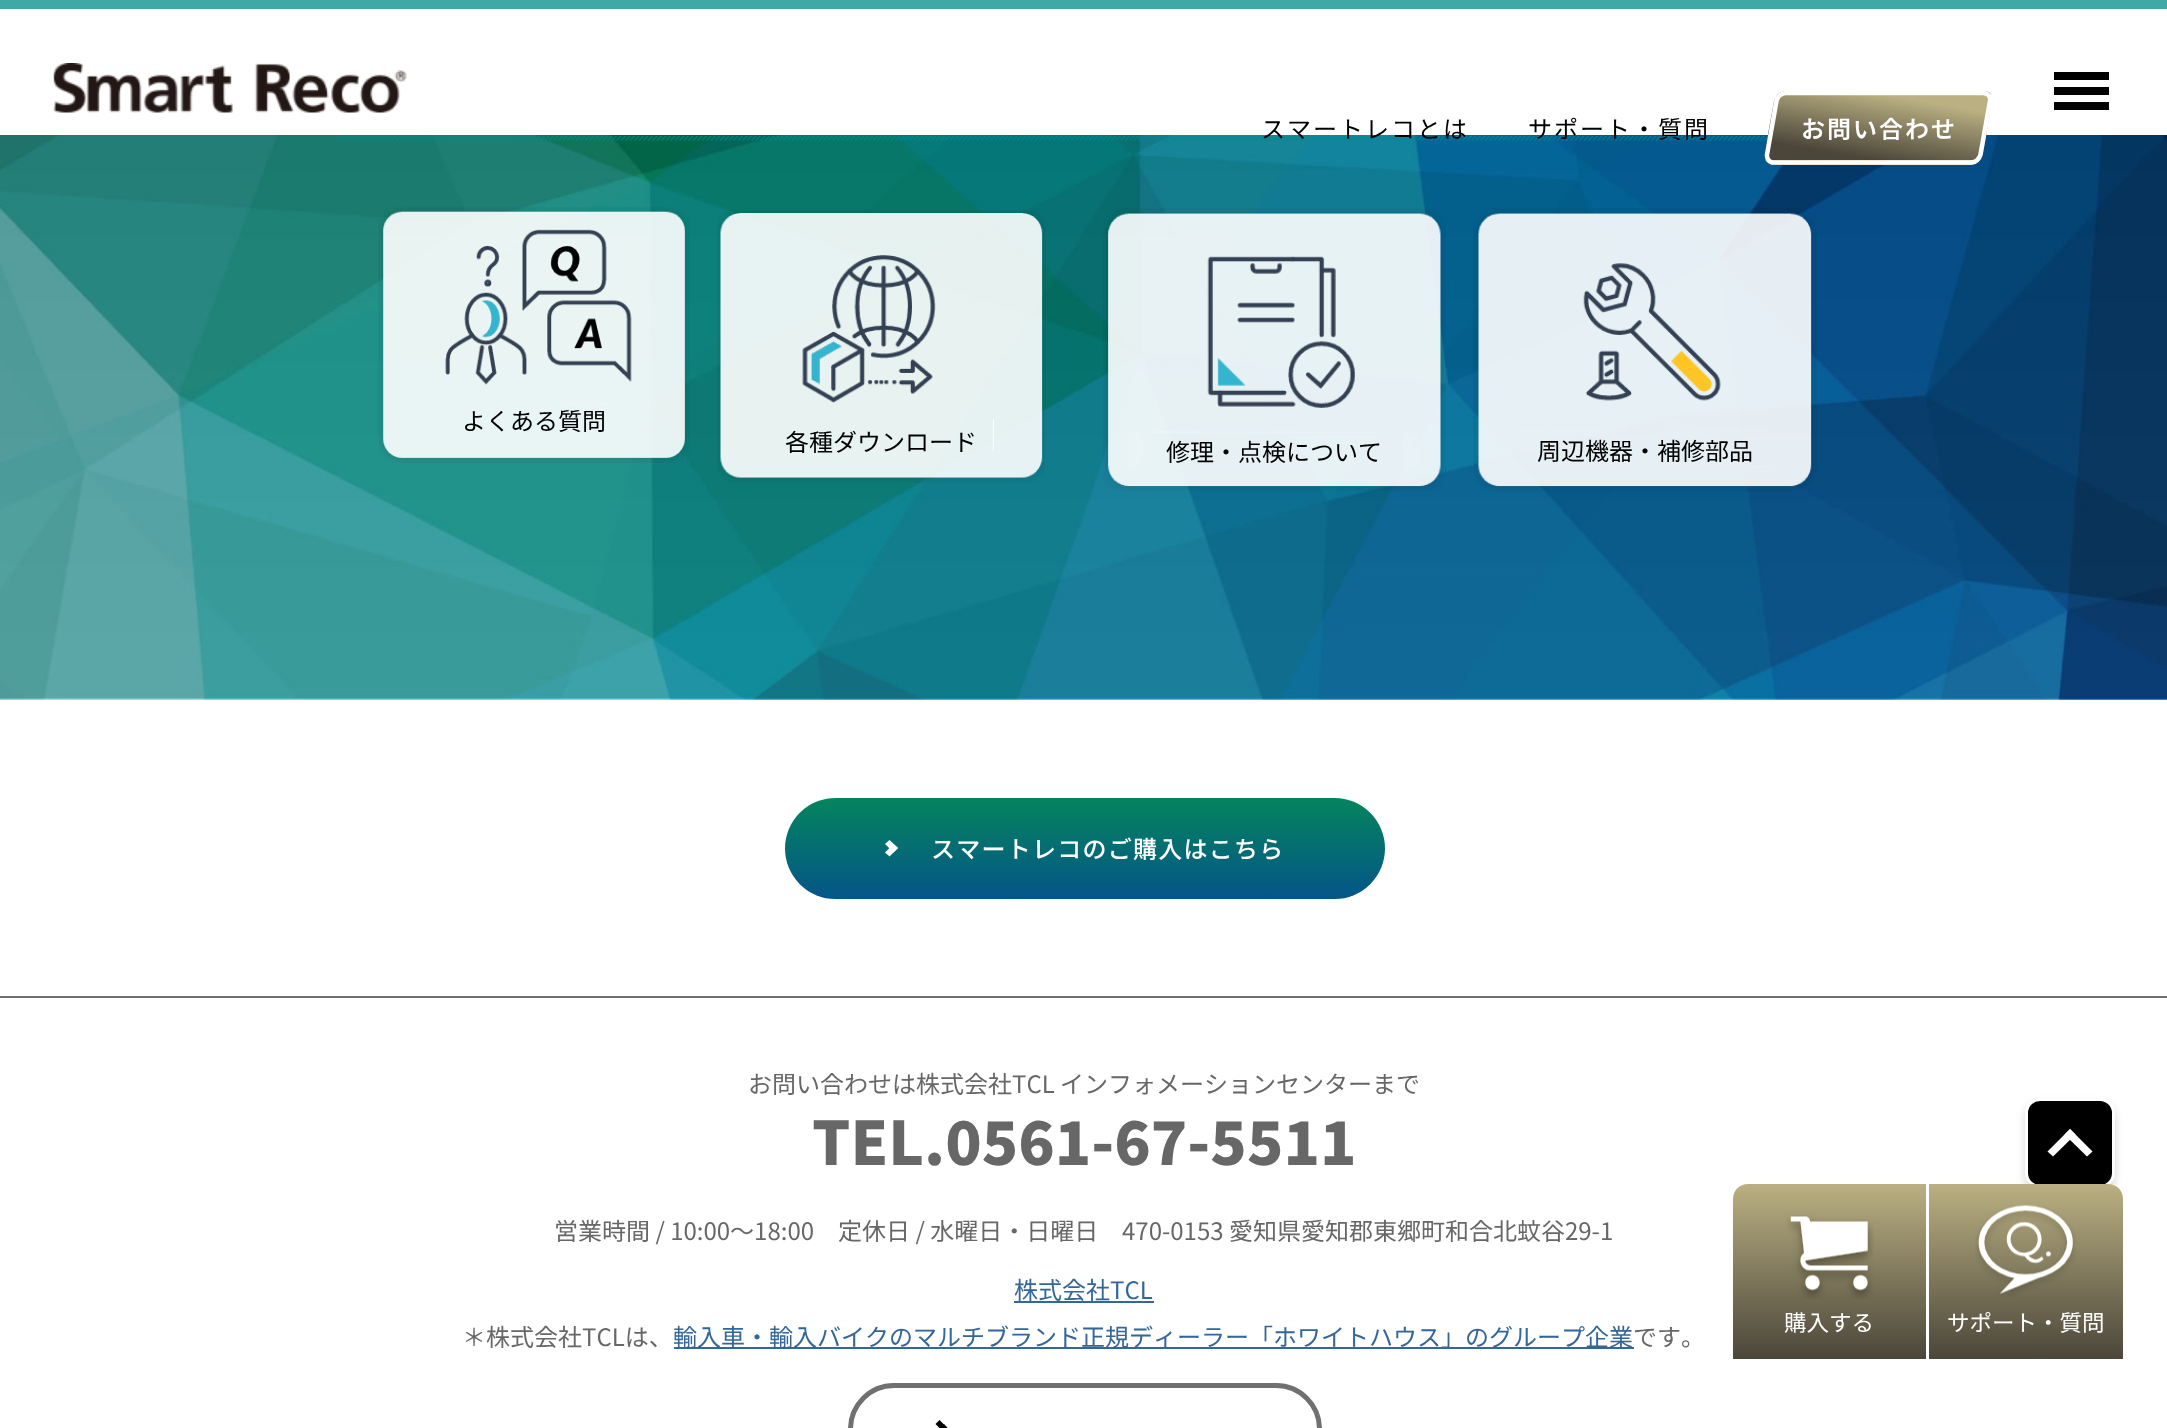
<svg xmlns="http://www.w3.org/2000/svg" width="2167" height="1428">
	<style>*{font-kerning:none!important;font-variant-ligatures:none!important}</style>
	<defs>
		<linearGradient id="g1" gradientUnits="userSpaceOnUse" x1="1896" y1="30" x2="1884" y2="95"><stop offset="0" stop-color="#BAB082" /><stop offset="1" stop-color="#4B463A" /></linearGradient>
		<linearGradient id="g2" gradientUnits="userSpaceOnUse" x1="1884" y1="95" x2="1873" y2="160"><stop offset="0" stop-color="#BAB082" /><stop offset="1" stop-color="#4B463A" /></linearGradient>
		<linearGradient id="g3" gradientUnits="userSpaceOnUse" x1="1873" y1="160" x2="1861" y2="226"><stop offset="0" stop-color="#BAB082" /><stop offset="1" stop-color="#4B463A" /></linearGradient>
		<linearGradient id="g4" gradientUnits="userSpaceOnUse" x1="1085" y1="798" x2="1085" y2="899"><stop offset="0" stop-color="#05845D" /><stop offset="1" stop-color="#045588" /></linearGradient>
		<linearGradient id="g5" gradientUnits="userSpaceOnUse" x1="1829" y1="1184" x2="1829" y2="1359"><stop offset="0" stop-color="#BAB082" /><stop offset="1" stop-color="#4B463A" /></linearGradient>
		<linearGradient id="g6" gradientUnits="userSpaceOnUse" x1="2026" y1="1184" x2="2026" y2="1359"><stop offset="0" stop-color="#BAB082" /><stop offset="1" stop-color="#4B463A" /></linearGradient>
	</defs>
	<rect width="100%" height="100%" fill="#FFFFFF" />
	<rect x="0" y="0" width="2167" height="9" fill="#41A9A5" />
	<image x="53" y="63" width="354" height="50" href="assets/img1.png" />
	<rect x="2054" y="72" width="55" height="8" fill="#000000" />
	<rect x="2054" y="87" width="55" height="8" fill="#000000" />
	<rect x="2054" y="102" width="55" height="8" fill="#000000" />
	<image x="0" y="135" width="2167" height="565" href="assets/img2.png" />
	<image x="337" y="136" width="1431" height="5" href="assets/img3.png" />
	<g font-family="Noto Sans JP" font-size="24" letter-spacing="2" fill="#000000">
		<text x="1261" y="138">スマートレコとは</text>
		<text x="1528" y="138">サポート・質問</text>
	</g>
	<path d="M1787 91H1984C1987 91 1990 92 1991 95H1777C1780 92 1783 91 1787 91Z" fill="url(#g1)" />
	<path d="M1766 145L1774 101C1775 99 1776 97 1777 95H1991L1992 99L1984 148C1983 152 1983 157 1980 160H1765C1764 156 1766 150 1766 145Z" fill="url(#g2)" />
	<path d="M1980 160C1978 163 1974 165 1970 165H1774C1770 165 1767 163 1765 160Z" fill="url(#g3)" />
	<path d="M1786 93H1983C1987.5 93 1991 96.5 1990 101L1980.5 154.5C1979.5 159 1975.5 162.5 1971 162.5H1774C1769.5 162.5 1766.5 159 1767 154.5L1776.5 101C1777.5 96.5 1781.5 93 1786 93Z" fill="none" stroke="#FFFFFF" stroke-width="4.5" />
	<text x="1801" y="138" font-family="Noto Sans JP" font-size="24" font-weight="600" letter-spacing="2" fill="#FFFFFF">お問い合わせ</text>
	<image x="378" y="207" width="312" height="256" href="assets/img4.png" />
	<text x="462" y="430" font-family="Noto Sans JP" font-size="24" fill="#000000">よくある質問</text>
	<image x="717" y="210" width="328" height="273" href="assets/img5.png" />
	<text x="785" y="451" font-family="Noto Sans JP" font-size="24" fill="#000000">各種ダウンロード</text>
	<image x="1103" y="208" width="343" height="283" href="assets/img6.png" />
	<text x="1166" y="461" font-family="Noto Sans JP" font-size="24" fill="#000000">修理・点検について</text>
	<image x="1473" y="208" width="344" height="284" href="assets/img7.png" />
	<text x="1537" y="460" font-family="Noto Sans JP" font-size="24" fill="#000000">周辺機器・補修部品</text>
	<rect x="785" y="798" width="600" height="101" rx="50.5" fill="url(#g4)" />
	<path d="M885 844L889.5 840L898 848L893.5 852.5Z" fill="#FFFFFF" />
	<path d="M885 852.5L893.5 844L898 848L889.5 856.5Z" fill="#FFFFFF" />
	<text x="931" y="858" font-family="Noto Sans JP" font-size="24" font-weight="500" letter-spacing="1.25" fill="#FFFFFF">スマートレコのご購入はこちら</text>
	<rect x="0" y="996" width="2167" height="2" fill="#707070" />
	<text x="748" y="1093" font-family="Noto Sans JP" font-size="24" fill="#676767">お問い合わせは株式会社TCL インフォメーションセンターまで</text>
	<text x="812" y="1165" font-family="Noto Sans JP" font-size="60" font-weight="900" fill="#676767">TEL.0561-67-5511</text>
	<g font-family="Noto Sans JP" font-size="24" fill="#676767">
		<text x="554" y="1240">営業時間 / 10:00～18:00</text>
		<text x="838" y="1240">定休日 / 水曜日・日曜日</text>
		<text x="1122" y="1240">470-0153 愛知県愛知郡東郷町和合北蚊谷29-1</text>
	</g>
	<text x="1014" y="1299" font-family="Noto Sans JP" font-size="24" fill="#336699">株式会社TCL</text>
	<rect x="1014" y="1301" width="140" height="2" fill="#336699" />
	<text x="462" y="1346" font-family="Noto Sans JP" font-size="24" fill="#676767">＊株式会社TCLは、</text>
	<rect x="674" y="1347" width="960" height="2" fill="#336699" />
	<text x="673" y="1346" font-family="Noto Sans JP" font-size="24" fill="#336699">輸入車・輸入バイクのマルチブランド正規ディーラー「ホワイトハウス」のグループ企業</text>
	<text x="1633" y="1346" font-family="Noto Sans JP" font-size="24" fill="#676767">です。</text>
	<rect x="850.5" y="1385.5" width="469" height="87" rx="43.5" fill="none" stroke="#707070" stroke-width="5" />
	<path d="M935.5 1424L939.5 1420L948 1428.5L944 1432.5Z" fill="#000000" />
	<path d="M935.5 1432.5L944 1424L948 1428.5L939.5 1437Z" fill="#000000" />
	<rect x="2025" y="1103" width="90" height="90" rx="15" fill="#000000" fill-opacity="0.16" filter="blur(4.5px)" />
	<rect x="2026.5" y="1099.5" width="87" height="87" rx="13.5" fill="#000000" stroke="#FFFFFF" stroke-width="3" />
	<path d="M2047.5 1151.5L2070 1129L2075.5 1134.5L2053 1156.5Z" fill="#FFFFFF" />
	<path d="M2064.5 1134.5L2070 1129L2092.5 1151.5L2087 1156.5Z" fill="#FFFFFF" />
	<rect x="1733" y="1184" width="390" height="199" rx="15" fill="#FFFFFF" />
	<path d="M1748 1184H1926V1359H1733V1199C1733 1190.5 1739.5 1184 1748 1184Z" fill="url(#g5)" />
	<image x="1787" y="1215" width="87" height="84" href="assets/img8.png" />
	<text x="1784" y="1331" font-family="Noto Sans JP" font-size="22.5" fill="#FFFFFF">購入する</text>
	<path d="M1929 1184H2108C2116.5 1184 2123 1190.5 2123 1199V1359H1929Z" fill="url(#g6)" />
	<image x="1975" y="1205" width="101" height="92" href="assets/img9.png" />
	<text x="1947" y="1331" font-family="Noto Sans JP" font-size="22.5" fill="#FFFFFF">サポート・質問</text>
</svg>
